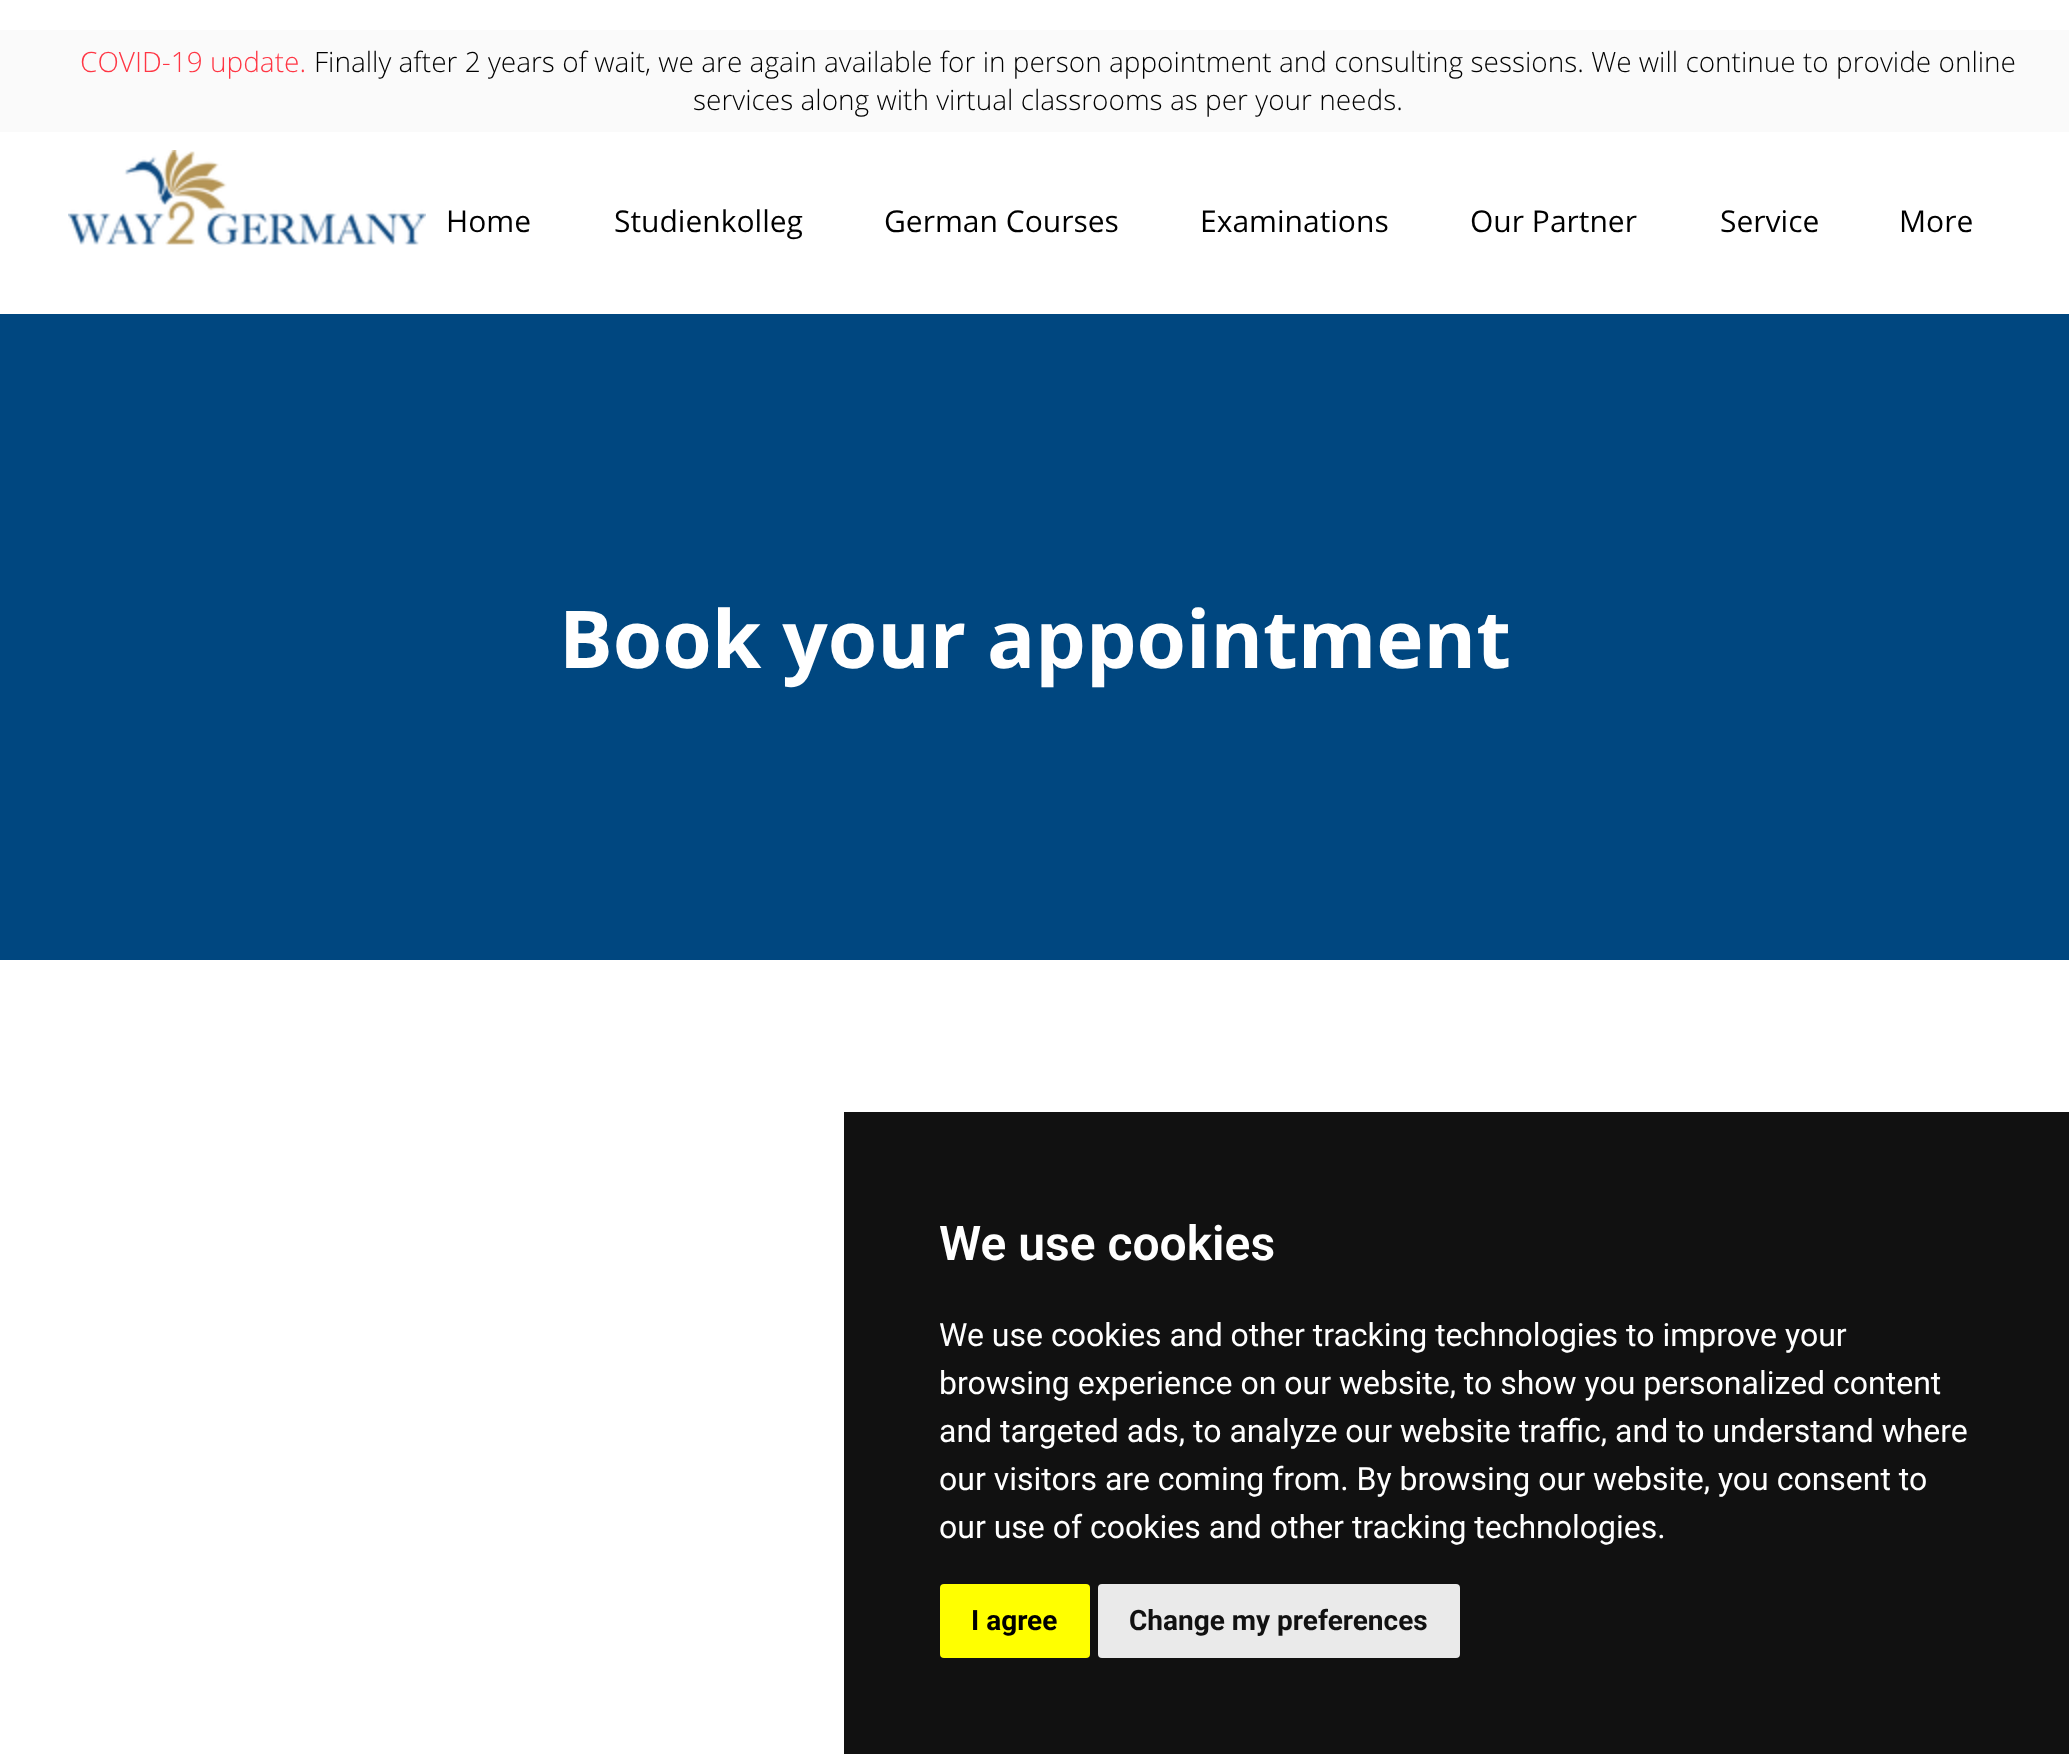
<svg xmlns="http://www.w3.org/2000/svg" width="2069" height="1754">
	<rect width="100%" height="100%" fill="#FFFFFF" />
	<rect x="0" y="30" width="2069" height="102" fill="#FAFAFA" />
	<text x="80" y="72" font-family="Open Sans" font-size="28" font-weight="300" fill="#FF3644">COVID-19 update.</text>
	<g font-family="Open Sans" font-size="28" font-weight="300" fill="#000000">
		<text x="314" y="72">Finally after 2 years of wait, we are again available for in person appointment and consulting sessions. We will continue to provide online</text>
		<text x="693" y="110">services along with virtual classrooms as per your needs.</text>
	</g>
	<image x="68" y="150" width="358" height="96" href="assets/img1.png" />
	<g font-family="Open Sans" font-size="30" fill="#000000">
		<text x="446" y="232">Home</text>
		<text x="614" y="232">Studienkolleg</text>
		<text x="884" y="232">German Courses</text>
		<text x="1200" y="232">Examinations</text>
		<text x="1470" y="232">Our Partner</text>
		<text x="1720" y="232">Service</text>
		<text x="1899" y="232">More</text>
	</g>
	<rect x="0" y="314" width="2069" height="646" fill="#004780" />
	<text x="559" y="668" font-family="Open Sans" font-size="80" font-weight="700" fill="#FFFFFF">Book your appointment</text>
	<rect x="844" y="1112" width="1225" height="642" fill="#111111" />
	<text x="939" y="1260" font-family="Roboto" font-size="48" font-weight="600" fill="#FFFFFF">We use cookies</text>
	<g font-family="Roboto" font-size="32" fill="#FFFFFF">
		<text x="939" y="1346">We use cookies and other tracking technologies to improve your</text>
		<text x="939" y="1394">browsing experience on our website, to show you personalized content</text>
		<text x="939" y="1442">and targeted ads, to analyze our website traffic, and to understand where</text>
		<text x="939" y="1490">our visitors are coming from. By browsing our website, you consent to</text>
		<text x="939" y="1538">our use of cookies and other tracking technologies.</text>
	</g>
	<rect x="940" y="1584" width="150" height="74" rx="4" fill="#FFFF00" />
	<text x="971" y="1630" font-family="Roboto" font-size="28" font-weight="700" fill="#000000">I agree</text>
	<rect x="1098" y="1584" width="362" height="74" rx="4" fill="#EAEAEA" />
	<text x="1129" y="1630" font-family="Roboto" font-size="28" font-weight="700" fill="#111111">Change my preferences</text>
</svg>
